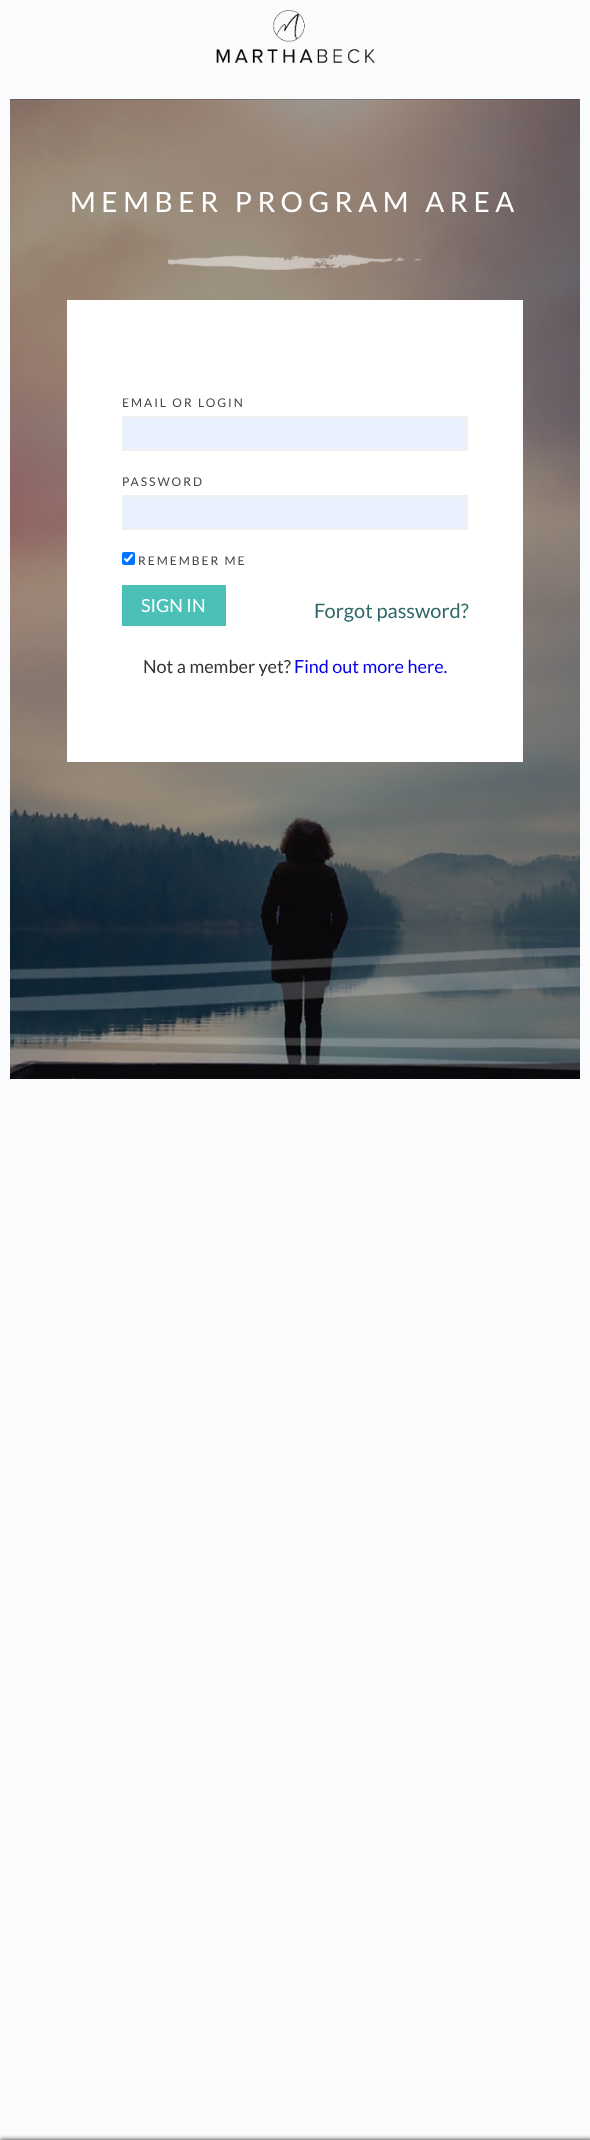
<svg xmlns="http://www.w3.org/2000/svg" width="590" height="2140">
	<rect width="100%" height="100%" fill="#FAFBFD" />
	<image x="216" y="10" width="159" height="54" href="assets/img1.png" />
	<image x="10" y="99" width="570" height="980" href="assets/img2.png" />
	<text x="70" y="212" font-family="Lato" font-size="28" letter-spacing="5.6" fill="#FFFFFF">MEMBER PROGRAM AREA</text>
	<image x="168" y="254" width="254" height="16" href="assets/img3.png" />
	<rect x="67" y="300" width="456" height="462" fill="#FFFFFF" />
	<text x="122" y="407" font-family="Lato" font-size="12" letter-spacing="2" fill="#444444">EMAIL OR LOGIN</text>
	<rect x="123" y="417" width="344" height="33" fill="#E8F0FE" stroke="#EFEFEF" stroke-width="2" />
	<text x="122" y="486" font-family="Lato" font-size="12" letter-spacing="2" fill="#444444">PASSWORD</text>
	<rect x="123" y="496" width="344" height="33" fill="#E8F0FE" stroke="#EFEFEF" stroke-width="2" />
	<rect x="122" y="552" width="13" height="13" rx="2" fill="#0075FF" />
	<path d="M124.5 558.5L127 561L132.5 554.5" fill="none" stroke="#FFFFFF" stroke-width="2.1" />
	<text x="138" y="565" font-family="Lato" font-size="12" letter-spacing="2" fill="#444444">REMEMBER ME</text>
	<rect x="122" y="585" width="104" height="41" fill="#4BC0B7" />
	<text x="141" y="612" font-family="Lato" font-size="18" fill="#FFFFFF">SIGN IN</text>
	<text x="314" y="618" font-family="Lato" font-size="20" fill="#2F6868">Forgot password?</text>
	<text x="143" y="673" font-family="Lato" font-size="18" fill="#333333">Not a member yet?</text>
	<text x="294" y="673" font-family="Lato" font-size="18" fill="#0400EE">Find out more here.</text>
	<rect x="0" y="2140" width="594" height="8" fill="#161616" filter="blur(2.5px)" />
</svg>
